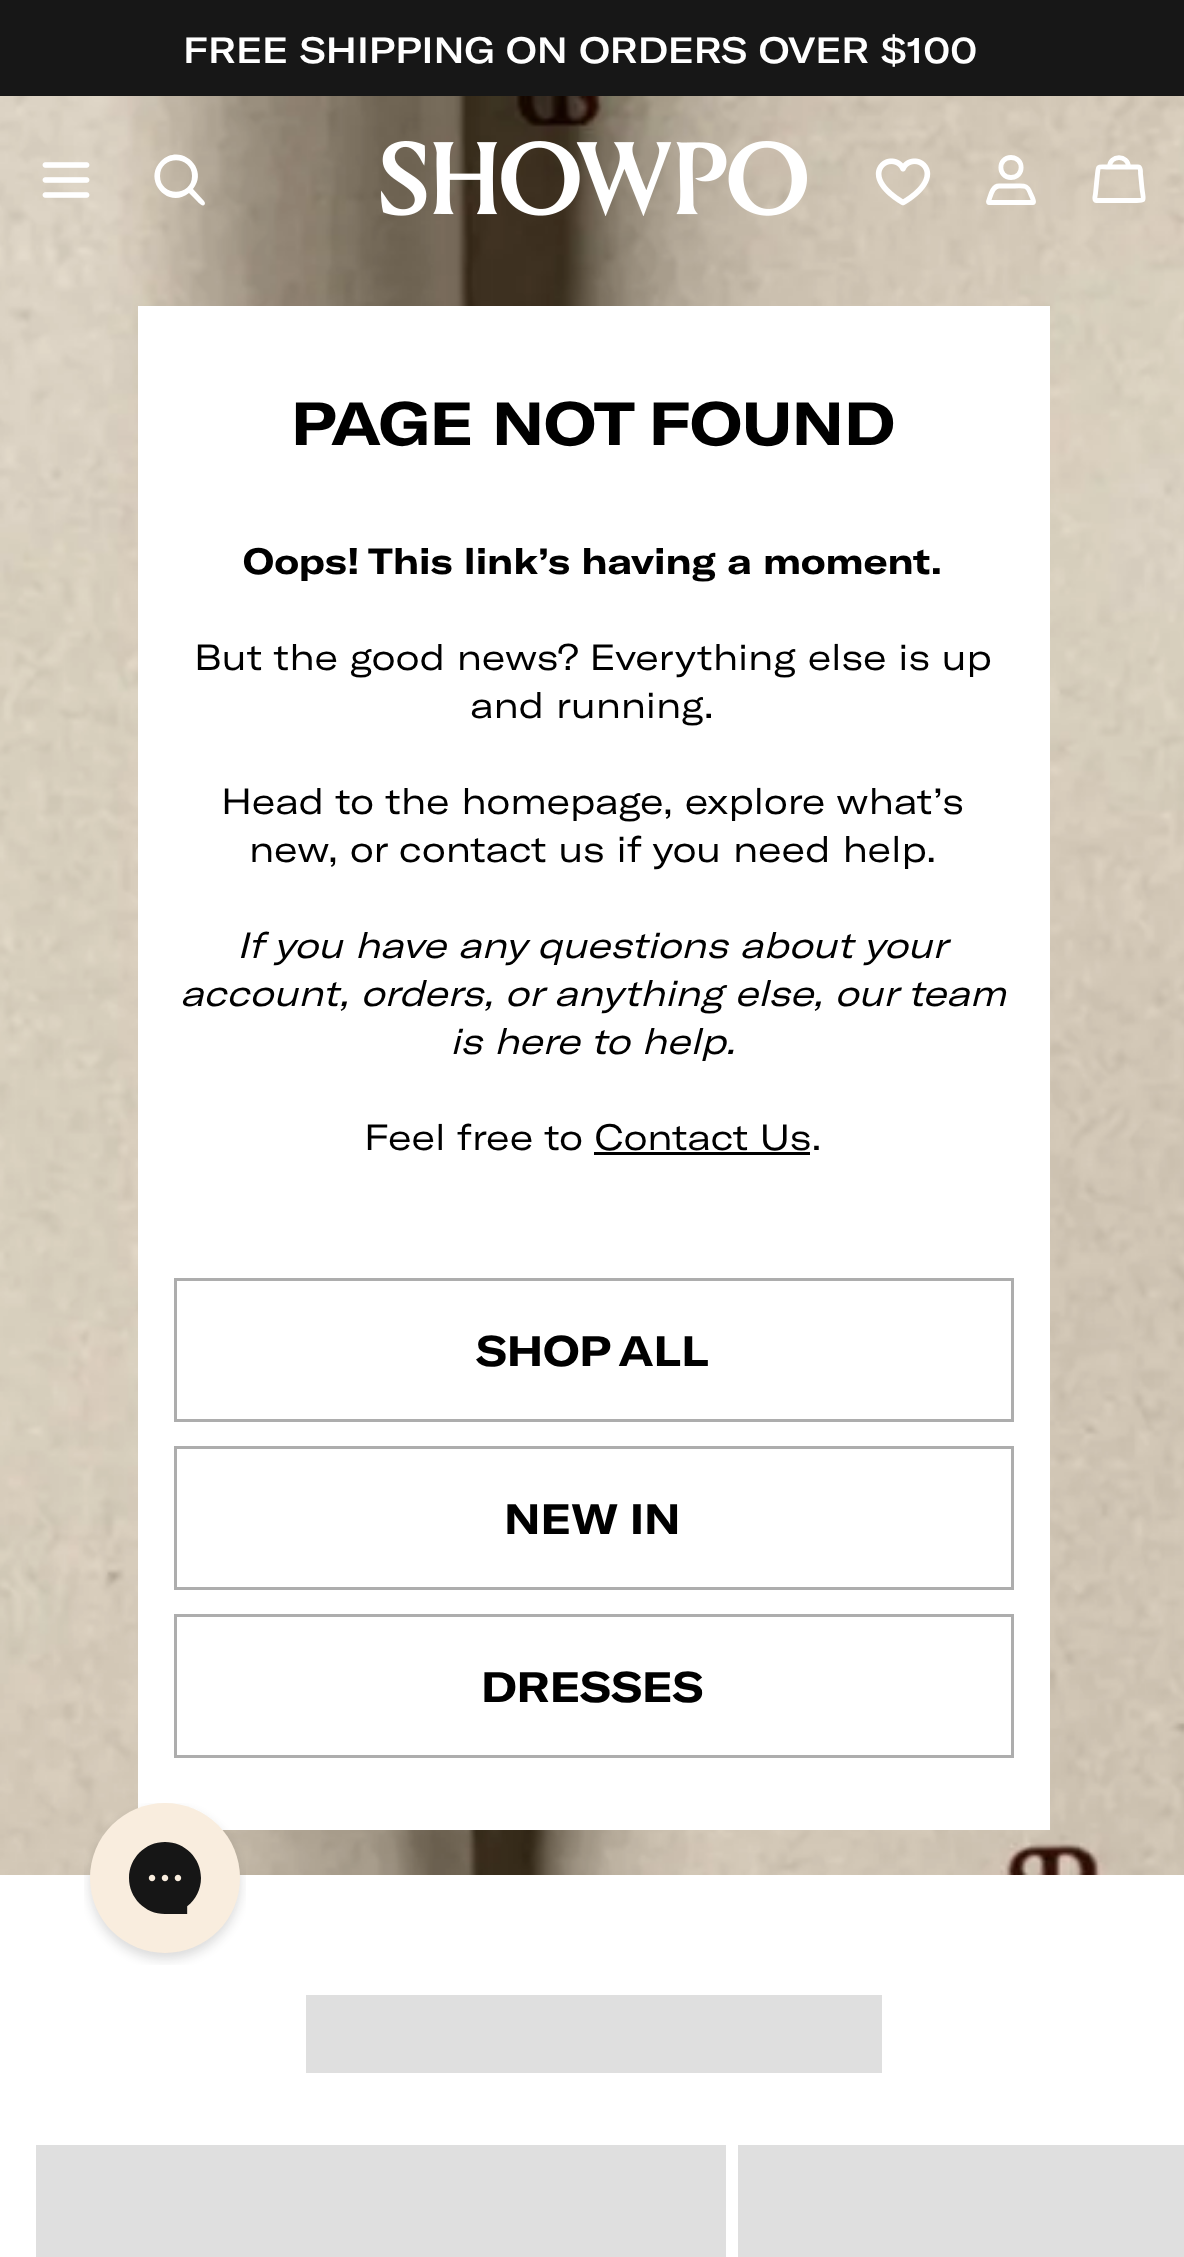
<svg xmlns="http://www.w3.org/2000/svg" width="1184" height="2257">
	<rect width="100%" height="100%" fill="#FFFFFF" />
	<rect x="0" y="0" width="1184" height="96" fill="#171717" />
	<text x="183" y="63" font-family="GT America" font-size="36" font-weight="500" fill="#FFFFFF">FREE SHIPPING ON ORDERS OVER $100</text>
	<image x="0" y="96" width="1184" height="1779" href="assets/img4.png" />
	<image x="42" y="162" width="48" height="36" href="assets/img1.png" />
	<path d="M204 201L193 189C210 168 180 142 161 161C142 180 168 210 189 193L195 199C196 200 204 210 205 203ZM160 176C160 155 192 155 192 176C192 197 160 197 160 176Z" fill="#FFFFFF" />
	<image x="381" y="141" width="426" height="75" href="assets/img2.png" />
	<image x="875" y="158" width="56" height="48" href="assets/img3.png" />
	<path d="M999 186H1015C1024.5 186 1027 184.5 1030.5 193.5C1031 195 1035 202.5 1033 202.5H989C988.5 202.5 988.5 202 988.5 201.5C990.5 196 992 186 999 186ZM1011 157.5C1024.5 157.5 1024.5 177.5 1011 177.5C997.5 177.5 997.5 157.5 1011 157.5Z" fill="none" stroke="#FFFFFF" stroke-width="4.8" />
	<path d="M1138 167H1106.5C1097.5 167 1098.5 165.5 1097.5 173.5L1095.5 193.5C1095.5 194.5 1093.5 200.5 1096.5 200.5H1134C1146 200.5 1143.5 201.5 1142 188.5L1140.5 173.5C1140.5 172.5 1141 167 1138 167ZM1109.5 167C1109.5 154.5 1128.5 154.5 1128.5 167" fill="none" stroke="#FFFFFF" stroke-width="4.8" stroke-linecap="round" stroke-linejoin="round" />
	<rect x="138" y="306" width="912" height="1524" fill="#FFFFFF" />
	<text x="291" y="445" font-family="GT America" font-size="60" font-weight="700" fill="#000000">PAGE NOT FOUND</text>
	<text x="243" y="574" font-family="GT America" font-size="36" font-weight="700" fill="#000000">Oops! This link’s having a moment.</text>
	<g font-family="GT America" font-size="36" fill="#000000">
		<text x="194" y="670">But the good news? Everything else is up</text>
		<text x="470" y="718">and running.</text>
		<text x="221" y="814">Head to the homepage, explore what’s</text>
		<text x="249" y="862">new, or contact us if you need help.</text>
	</g>
	<g font-family="GT America" font-size="36" font-style="italic" fill="#000000">
		<text x="237" y="958">If you have any questions about your</text>
		<text x="180" y="1006">account, orders, or anything else, our team</text>
		<text x="450" y="1054">is here to help.</text>
	</g>
	<text x="364" y="1150" font-family="GT America" font-size="36" fill="#000000">Feel free to Contact Us.</text>
	<rect x="594" y="1152" width="216" height="3" fill="#000000" />
	<rect x="175.5" y="1279.5" width="837" height="141" fill="none" stroke="#ADADAD" stroke-width="3" />
	<text x="476" y="1366" font-family="GT America" font-size="42" font-weight="700" fill="#000000">SHOP ALL</text>
	<rect x="175.5" y="1447.5" width="837" height="141" fill="none" stroke="#ADADAD" stroke-width="3" />
	<text x="504" y="1534" font-family="GT America" font-size="42" font-weight="700" fill="#000000">NEW IN</text>
	<rect x="175.5" y="1615.5" width="837" height="141" fill="none" stroke="#ADADAD" stroke-width="3" />
	<text x="481" y="1702" font-family="GT America" font-size="42" font-weight="700" fill="#000000">DRESSES</text>
	<rect x="306" y="1995" width="576" height="78" fill="#DFDFDF" />
	<rect x="36" y="2145" width="690" height="112" fill="#DFDFDF" />
	<rect x="738" y="2145" width="446" height="112" fill="#DFDFDF" />
	<image x="84" y="1803" width="162" height="162" href="assets/img5.png" />
</svg>
